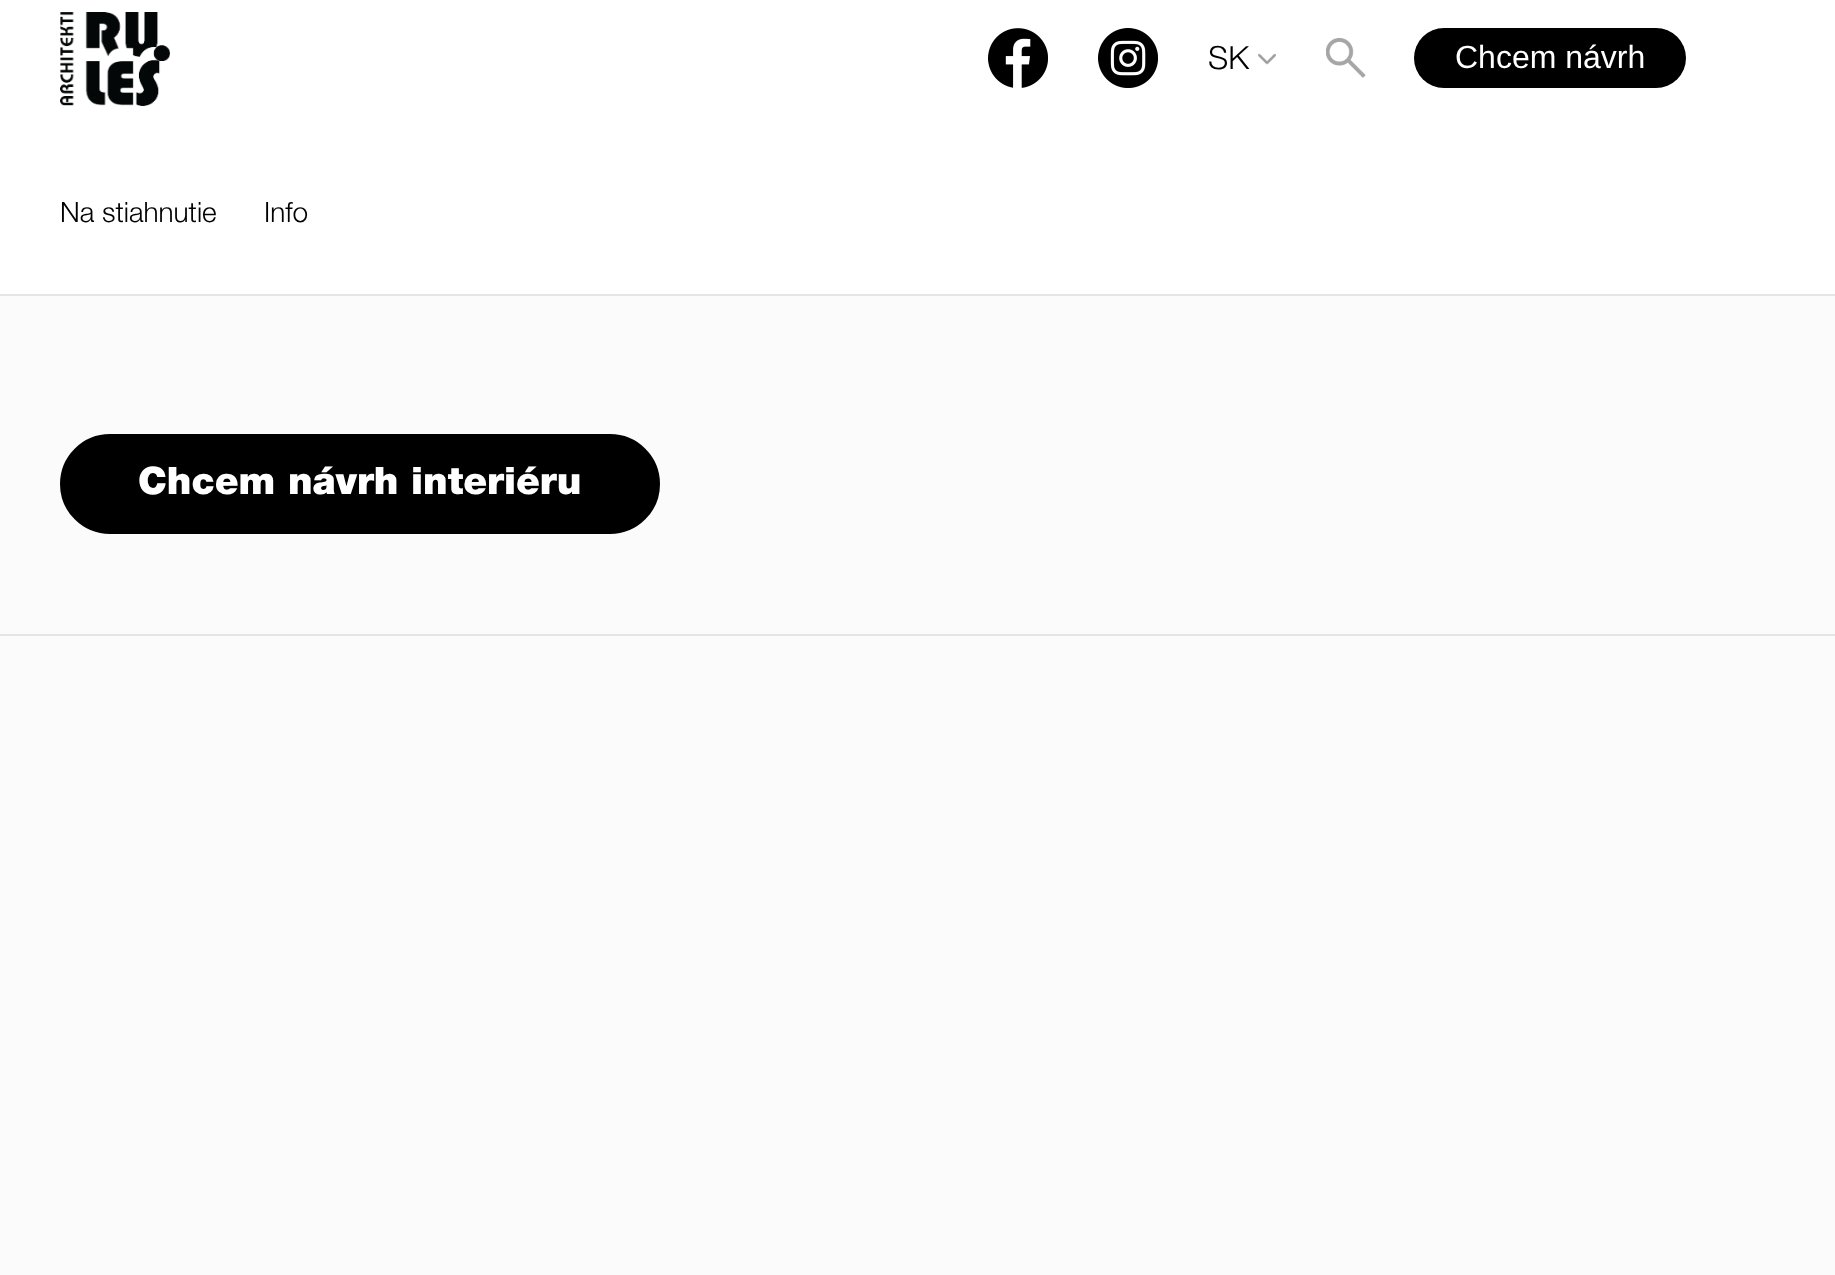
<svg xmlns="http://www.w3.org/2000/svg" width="1835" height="1275">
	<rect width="100%" height="100%" fill="#FBFBFB" />
	<rect x="0" y="0" width="1835" height="294" fill="#FFFFFF" />
	<image x="60" y="12" width="110" height="94" href="assets/img1.png" />
	<image x="988" y="28" width="60" height="60" href="assets/img2.png" />
	<image x="1098" y="28" width="60" height="60" href="assets/img3.png" />
	<image x="1258" y="53" width="18" height="12" href="assets/img4.png" />
	<text x="1208" y="69" font-family="Helvetica Neue" font-size="32" font-weight="300" fill="#000000">SK</text>
	<image x="1326" y="38" width="40" height="40" href="assets/img5.png" />
	<rect x="1414" y="28" width="272" height="60" rx="30" fill="#000000" />
	<text x="1455" y="68" font-family="Liberation Sans" font-size="32" fill="#FFFFFF">Chcem návrh</text>
	<rect x="0" y="294" width="1835" height="2" fill="#E5E5E5" />
	<g font-family="Helvetica Neue" font-size="28" font-weight="300" fill="#000000">
		<text x="60" y="222">Na stiahnutie</text>
		<text x="264" y="222">Info</text>
	</g>
	<rect x="63" y="437" width="594" height="94" rx="47" fill="#000000" stroke="#000000" stroke-width="6" />
	<text x="138" y="494" font-family="Helvetica Neue" font-size="38" font-weight="900" fill="#FFFFFF">Chcem návrh interiéru</text>
	<rect x="0" y="634" width="1835" height="2" fill="#E5E5E5" />
</svg>
